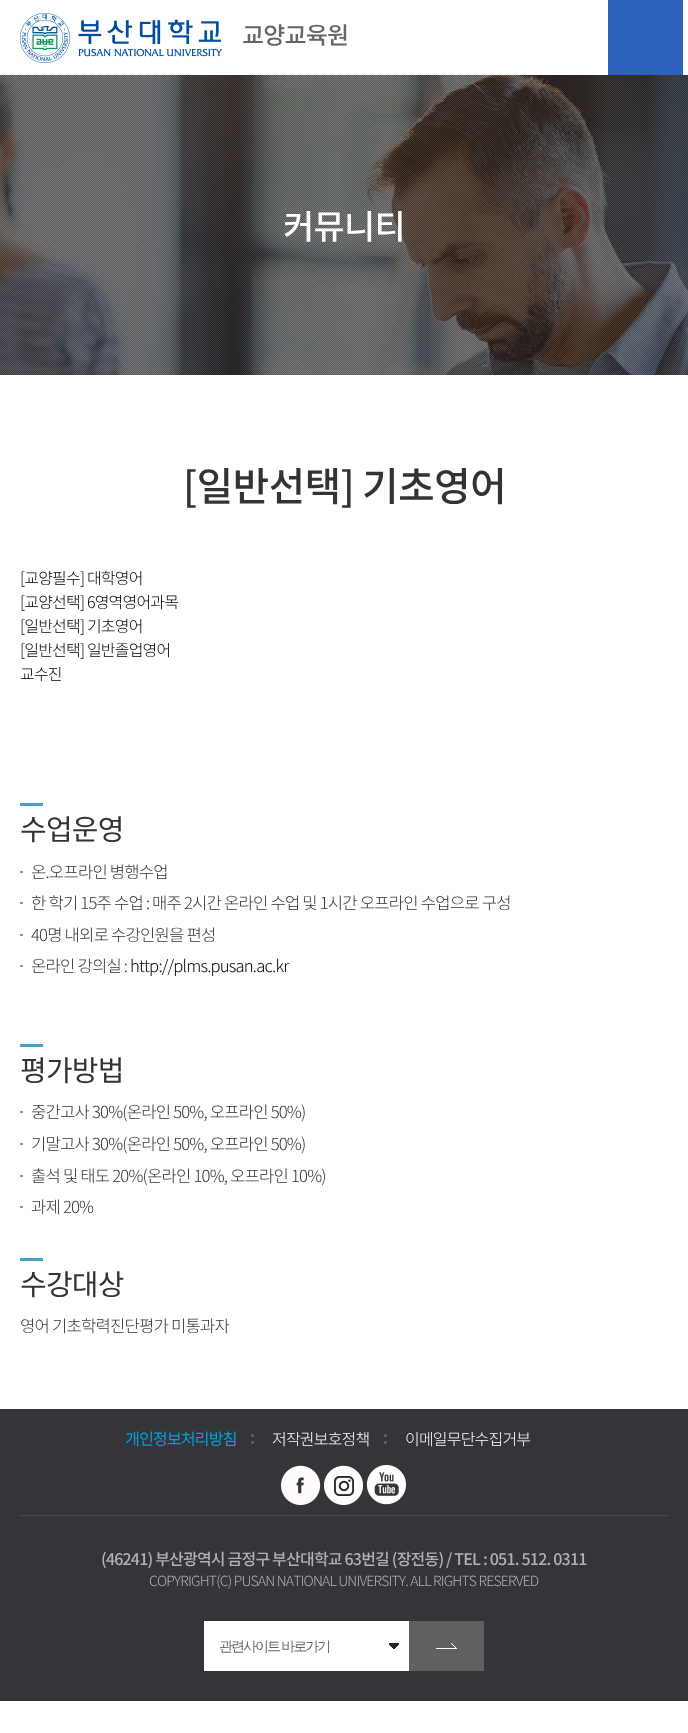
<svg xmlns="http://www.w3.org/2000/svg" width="688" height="1733">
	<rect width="100%" height="100%" fill="#FFFFFF" />
	<image x="20" y="13" width="202" height="50" href="assets/img1.png" />
	<text x="242" y="44" font-family="Noto Sans KR" font-size="24" font-weight="500" letter-spacing="-0.8" fill="#666666">교양교육원</text>
	<rect x="608" y="0" width="75" height="75" fill="#2D62BC" />
	<image x="0" y="75" width="688" height="300" href="assets/img2.png" />
	<image x="0" y="75" width="688" height="300" href="assets/img3.png" />
	<text x="283" y="239" font-family="Noto Sans KR" font-size="34" font-weight="500" letter-spacing="-0.8" fill="#FFFFFF">커뮤니티</text>
	<text x="183" y="501" font-family="Noto Sans KR" font-size="40" font-weight="500" letter-spacing="-0.8" fill="#333333">[일반선택] 기초영어</text>
	<g font-family="Noto Sans KR" font-size="16" font-weight="300" letter-spacing="-0.8" fill="#000000">
		<text x="20" y="584">[교양필수] 대학영어</text>
		<text x="20" y="608">[교양선택] 6영역영어과목</text>
		<text x="20" y="632">[일반선택] 기초영어</text>
		<text x="20" y="656">[일반선택] 일반졸업영어</text>
		<text x="20" y="680">교수진</text>
	</g>
	<rect x="20" y="803" width="23" height="3" fill="#44A3BD" />
	<text x="20" y="840" font-family="Noto Sans KR" font-size="29" letter-spacing="-0.8" fill="#333333">수업운영</text>
	<rect x="20" y="871" width="3" height="2" fill="#999999" />
	<text x="31" y="878" font-family="Noto Sans KR" font-size="16.65" font-weight="300" letter-spacing="-0.8" fill="#333333">온.오프라인 병행수업</text>
	<rect x="20" y="902" width="3" height="2" fill="#999999" />
	<text x="31" y="909" font-family="Noto Sans KR" font-size="16.65" font-weight="300" letter-spacing="-0.8" fill="#333333">한 학기 15주 수업 : 매주 2시간 온라인 수업 및 1시간 오프라인 수업으로 구성</text>
	<rect x="20" y="934" width="3" height="2" fill="#999999" />
	<text x="31" y="941" font-family="Noto Sans KR" font-size="16.65" font-weight="300" letter-spacing="-0.8" fill="#333333">40명 내외로 수강인원을 편성</text>
	<rect x="20" y="965" width="3" height="2" fill="#999999" />
	<text x="31" y="972" font-family="Noto Sans KR" font-size="16.65" font-weight="300" letter-spacing="-0.8" fill="#333333">온라인 강의실 :</text>
	<text x="130" y="972" font-family="Noto Sans KR" font-size="16.65" font-weight="300" letter-spacing="-0.8" fill="#000000">http://plms.pusan.ac.kr</text>
	<rect x="20" y="1044" width="23" height="3" fill="#44A3BD" />
	<text x="20" y="1081" font-family="Noto Sans KR" font-size="29" letter-spacing="-0.8" fill="#333333">평가방법</text>
	<rect x="20" y="1111" width="3" height="2" fill="#999999" />
	<text x="31" y="1118" font-family="Noto Sans KR" font-size="16.65" font-weight="300" letter-spacing="-0.8" fill="#333333">중간고사 30%(온라인 50%, 오프라인 50%)</text>
	<rect x="20" y="1143" width="3" height="2" fill="#999999" />
	<text x="31" y="1150" font-family="Noto Sans KR" font-size="16.65" font-weight="300" letter-spacing="-0.8" fill="#333333">기말고사 30%(온라인 50%, 오프라인 50%)</text>
	<rect x="20" y="1175" width="3" height="2" fill="#999999" />
	<text x="31" y="1182" font-family="Noto Sans KR" font-size="16.65" font-weight="300" letter-spacing="-0.8" fill="#333333">출석 및 태도 20%(온라인 10%, 오프라인 10%)</text>
	<rect x="20" y="1206" width="3" height="2" fill="#999999" />
	<text x="31" y="1213" font-family="Noto Sans KR" font-size="16.65" font-weight="300" letter-spacing="-0.8" fill="#333333">과제 20%</text>
	<rect x="20" y="1258" width="23" height="3" fill="#44A3BD" />
	<text x="20" y="1295" font-family="Noto Sans KR" font-size="29" letter-spacing="-0.8" fill="#333333">수강대상</text>
	<text x="20" y="1332" font-family="Noto Sans KR" font-size="16.65" font-weight="300" letter-spacing="-0.8" fill="#333333">영어 기초학력진단평가 미통과자</text>
	<rect x="0" y="1409" width="688" height="292" fill="#343539" />
	<rect x="20" y="1515" width="648" height="1" fill="#494A4D" />
	<text x="125" y="1445" font-family="Noto Sans KR" font-size="16" font-weight="700" letter-spacing="-0.8" fill="#069EDB">개인정보처리방침</text>
	<image x="251" y="1434" width="3" height="10" href="assets/img4.png" />
	<text x="272" y="1445" font-family="Noto Sans KR" font-size="16" font-weight="300" letter-spacing="-0.8" fill="#FFFFFF">저작권보호정책</text>
	<image x="384" y="1434" width="3" height="10" href="assets/img4.png" />
	<text x="405" y="1445" font-family="Noto Sans KR" font-size="16" font-weight="300" letter-spacing="-0.8" fill="#FFFFFF">이메일무단수집거부</text>
	<image x="281" y="1465" width="40" height="40" href="assets/img5.png" />
	<image x="324" y="1465" width="39" height="40" href="assets/img6.png" />
	<image x="367" y="1465" width="39" height="40" href="assets/img7.png" />
	<text x="101" y="1565" font-family="Noto Sans KR" font-size="16" font-weight="500" letter-spacing="-0.8" fill="#B1B1B1">(46241) 부산광역시 금정구 부산대학교 63번길 (장전동) / TEL : 051. 512. 0311</text>
	<text x="149" y="1586" font-family="Noto Sans KR" font-size="14" font-weight="300" letter-spacing="-0.8" fill="#B1B1B1">COPYRIGHT(C) PUSAN NATIONAL UNIVERSITY. ALL RIGHTS RESERVED</text>
	<rect x="204" y="1621" width="205" height="50" fill="#FFFFFF" />
	<image x="389" y="1643" width="10" height="6" href="assets/img8.png" />
	<text x="219" y="1651" font-family="WenQuanYi Zen Hei" font-size="14" font-weight="500" letter-spacing="-2" fill="#666666">관련사이트 바로가기</text>
	<rect x="409" y="1621" width="75" height="50" fill="#606060" />
	<image x="436" y="1643" width="21" height="6" href="assets/img9.png" />
</svg>
